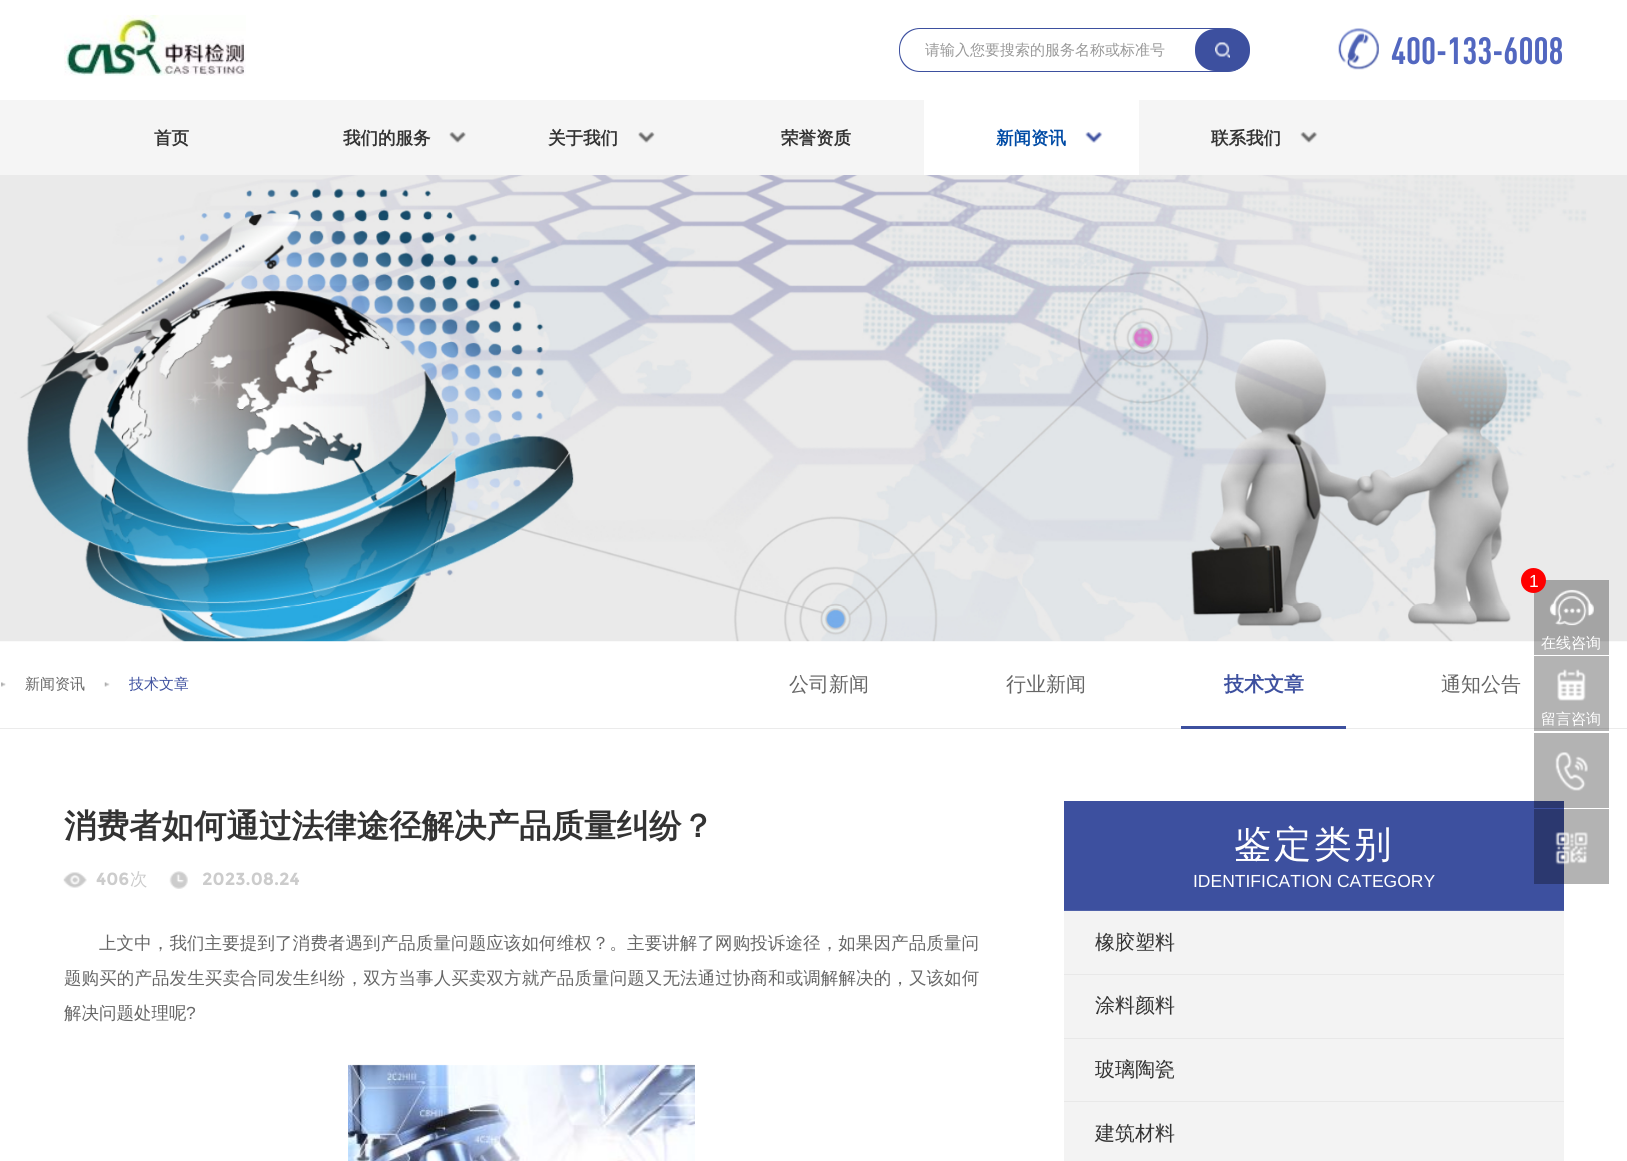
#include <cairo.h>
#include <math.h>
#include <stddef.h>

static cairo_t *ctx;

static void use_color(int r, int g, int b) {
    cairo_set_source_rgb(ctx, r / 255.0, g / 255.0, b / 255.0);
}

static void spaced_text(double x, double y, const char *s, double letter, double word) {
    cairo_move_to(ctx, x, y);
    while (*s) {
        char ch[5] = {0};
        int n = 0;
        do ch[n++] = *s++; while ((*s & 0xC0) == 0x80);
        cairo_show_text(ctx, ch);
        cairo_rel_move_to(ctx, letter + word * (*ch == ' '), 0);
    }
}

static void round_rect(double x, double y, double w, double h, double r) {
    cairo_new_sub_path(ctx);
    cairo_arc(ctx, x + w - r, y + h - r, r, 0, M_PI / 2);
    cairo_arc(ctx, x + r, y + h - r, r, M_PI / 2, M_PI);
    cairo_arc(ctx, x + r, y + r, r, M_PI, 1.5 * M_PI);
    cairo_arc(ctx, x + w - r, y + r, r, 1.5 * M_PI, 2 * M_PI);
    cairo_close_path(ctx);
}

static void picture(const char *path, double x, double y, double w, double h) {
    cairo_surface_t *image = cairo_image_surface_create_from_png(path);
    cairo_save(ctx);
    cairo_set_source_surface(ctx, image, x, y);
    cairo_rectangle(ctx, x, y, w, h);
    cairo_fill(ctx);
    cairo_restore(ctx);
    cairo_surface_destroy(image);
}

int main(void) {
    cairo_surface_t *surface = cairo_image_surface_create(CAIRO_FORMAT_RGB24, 1627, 1161);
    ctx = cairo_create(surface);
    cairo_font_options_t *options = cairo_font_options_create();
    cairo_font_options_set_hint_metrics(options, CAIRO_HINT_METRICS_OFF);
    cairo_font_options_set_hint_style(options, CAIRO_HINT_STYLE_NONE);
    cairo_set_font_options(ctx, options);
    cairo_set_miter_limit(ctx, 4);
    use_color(255, 255, 255);
    cairo_paint(ctx);
    use_color(179, 179, 179);
    cairo_rectangle(ctx, 1564, 809, 45, 75);
    cairo_fill(ctx);
    cairo_rectangle(ctx, 1534, 733, 75, 75);
    cairo_fill(ctx);
    cairo_rectangle(ctx, 1534, 656, 75, 75);
    cairo_fill(ctx);
    picture("img1.png", 64, 15, 182, 61);
    use_color(61, 80, 159);
    cairo_set_fill_rule(ctx, CAIRO_FILL_RULE_EVEN_ODD);
    cairo_new_path(ctx);
    cairo_move_to(ctx, 920, 28);
    cairo_line_to(ctx, 1228, 28);
    cairo_curve_to(ctx, 1239, 28, 1249, 37, 1249, 49);
    cairo_line_to(ctx, 1249, 51);
    cairo_curve_to(ctx, 1249, 63, 1239, 72, 1228, 72);
    cairo_line_to(ctx, 920, 72);
    cairo_curve_to(ctx, 908, 72, 899, 63, 899, 51);
    cairo_line_to(ctx, 899, 49);
    cairo_curve_to(ctx, 899, 37, 908, 28, 920, 28);
    cairo_close_path(ctx);
    cairo_move_to(ctx, 920, 29);
    cairo_line_to(ctx, 1228, 29);
    cairo_curve_to(ctx, 1239, 29, 1249, 38, 1249, 49);
    cairo_line_to(ctx, 1249, 51);
    cairo_curve_to(ctx, 1249, 62, 1239, 71, 1228, 71);
    cairo_line_to(ctx, 920, 71);
    cairo_curve_to(ctx, 909, 71, 900, 62, 900, 51);
    cairo_line_to(ctx, 900, 49);
    cairo_curve_to(ctx, 900, 38, 909, 29, 920, 29);
    cairo_close_path(ctx);
    cairo_fill(ctx);
    cairo_select_font_face(ctx, "WenQuanYi Zen Hei Medium", CAIRO_FONT_SLANT_NORMAL, CAIRO_FONT_WEIGHT_NORMAL);
    cairo_set_font_size(ctx, 15);
    use_color(153, 153, 153);
    cairo_move_to(ctx, 925, 55);
    cairo_show_text(ctx, "请输入您要搜索的服务名称或标准号");
    use_color(61, 80, 159);
    round_rect(1195, 29, 55, 42, 20);
    cairo_fill(ctx);
    picture("img2.png", 1215, 42, 15, 16);
    picture("img3.png", 1338, 28, 41, 42);
    cairo_select_font_face(ctx, "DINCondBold", CAIRO_FONT_SLANT_NORMAL, CAIRO_FONT_WEIGHT_BOLD);
    cairo_set_font_size(ctx, 37.5);
    use_color(82, 103, 192);
    cairo_move_to(ctx, 1391, 64);
    cairo_show_text(ctx, "400-133-6008");
    use_color(245, 245, 245);
    cairo_rectangle(ctx, 0, 100, 1627, 75);
    cairo_fill(ctx);
    cairo_select_font_face(ctx, "WenQuanYi Zen Hei", CAIRO_FONT_SLANT_NORMAL, CAIRO_FONT_WEIGHT_BOLD);
    cairo_set_font_size(ctx, 17.5);
    use_color(51, 51, 51);
    cairo_move_to(ctx, 154, 144);
    cairo_show_text(ctx, "首页");
    cairo_move_to(ctx, 343, 144);
    cairo_show_text(ctx, "我们的服务");
    picture("img4.png", 449, 132, 17, 11);
    cairo_move_to(ctx, 548, 144);
    cairo_show_text(ctx, "关于我们");
    picture("img5.png", 638, 132, 17, 11);
    cairo_move_to(ctx, 781, 144);
    cairo_show_text(ctx, "荣誉资质");
    use_color(255, 255, 255);
    cairo_rectangle(ctx, 924, 100, 215, 75);
    cairo_fill(ctx);
    use_color(0, 75, 165);
    cairo_move_to(ctx, 996, 144);
    cairo_show_text(ctx, "新闻资讯");
    picture("img6.png", 1085, 132, 18, 11);
    use_color(51, 51, 51);
    cairo_move_to(ctx, 1211, 144);
    cairo_show_text(ctx, "联系我们");
    picture("img7.png", 1300, 132, 18, 11);
    picture("img12.png", 0, 175, 1627, 467);
    cairo_set_source_rgba(ctx, 0, 0, 0, 0.3);
    cairo_rectangle(ctx, 1534, 580, 75, 75);
    cairo_fill(ctx);
    use_color(255, 0, 0);
    cairo_arc(ctx, 1533.5, 580.5, 12.5, 0, 2 * M_PI);
    cairo_fill(ctx);
    cairo_select_font_face(ctx, "Liberation Sans", CAIRO_FONT_SLANT_NORMAL, CAIRO_FONT_WEIGHT_NORMAL);
    use_color(255, 255, 255);
    cairo_move_to(ctx, 1529, 587);
    cairo_show_text(ctx, "1");
    picture("img8.png", 1549, 589, 45, 37);
    cairo_select_font_face(ctx, "WenQuanYi Zen Hei Medium", CAIRO_FONT_SLANT_NORMAL, CAIRO_FONT_WEIGHT_NORMAL);
    cairo_set_font_size(ctx, 15);
    cairo_move_to(ctx, 1541, 648);
    cairo_show_text(ctx, "在线咨询");
    picture("img9.png", 1557, 669, 29, 32);
    cairo_move_to(ctx, 1541, 724);
    cairo_show_text(ctx, "留言咨询");
    picture("img10.png", 1555, 752, 33, 39);
    use_color(61, 80, 159);
    cairo_rectangle(ctx, 1064, 801, 500, 109);
    cairo_fill(ctx);
    use_color(43, 56, 111);
    cairo_rectangle(ctx, 1534, 809, 30, 75);
    cairo_fill(ctx);
    picture("img11.png", 1555, 832, 33, 33);
    picture("img13.png", 1, 682, 5, 5);
    use_color(102, 102, 102);
    cairo_move_to(ctx, 25, 689);
    cairo_show_text(ctx, "新闻资讯");
    picture("img14.png", 104, 682, 6, 5);
    use_color(61, 80, 159);
    cairo_move_to(ctx, 129, 689);
    cairo_show_text(ctx, "技术文章");
    cairo_set_font_size(ctx, 20);
    use_color(102, 102, 102);
    cairo_move_to(ctx, 789, 691);
    cairo_show_text(ctx, "公司新闻");
    cairo_move_to(ctx, 1006, 691);
    cairo_show_text(ctx, "行业新闻");
    cairo_select_font_face(ctx, "WenQuanYi Zen Hei", CAIRO_FONT_SLANT_NORMAL, CAIRO_FONT_WEIGHT_BOLD);
    use_color(61, 80, 159);
    cairo_move_to(ctx, 1224, 691);
    cairo_show_text(ctx, "技术文章");
    use_color(235, 235, 235);
    cairo_rectangle(ctx, 0, 728, 1627, 1);
    cairo_fill(ctx);
    use_color(61, 80, 159);
    cairo_rectangle(ctx, 1181, 726, 165, 3);
    cairo_fill(ctx);
    cairo_select_font_face(ctx, "WenQuanYi Zen Hei Medium", CAIRO_FONT_SLANT_NORMAL, CAIRO_FONT_WEIGHT_NORMAL);
    use_color(102, 102, 102);
    cairo_move_to(ctx, 1441, 691);
    cairo_show_text(ctx, "通知公告");
    use_color(165, 165, 165);
    cairo_rectangle(ctx, 1534, 728, 75, 1);
    cairo_fill(ctx);
    cairo_select_font_face(ctx, "WenQuanYi Zen Hei", CAIRO_FONT_SLANT_NORMAL, CAIRO_FONT_WEIGHT_BOLD);
    cairo_set_font_size(ctx, 32.5);
    use_color(51, 51, 51);
    cairo_move_to(ctx, 64, 837);
    cairo_show_text(ctx, "消费者如何通过法律途径解决产品质量纠纷？");
    picture("img15.png", 63, 872, 24, 16);
    cairo_select_font_face(ctx, "Montserrat", CAIRO_FONT_SLANT_NORMAL, CAIRO_FONT_WEIGHT_BOLD);
    cairo_set_font_size(ctx, 17.5);
    use_color(204, 204, 204);
    cairo_move_to(ctx, 96, 885);
    cairo_show_text(ctx, "406");
    cairo_select_font_face(ctx, "WenQuanYi Zen Hei Medium", CAIRO_FONT_SLANT_NORMAL, CAIRO_FONT_WEIGHT_NORMAL);
    cairo_move_to(ctx, 130, 885);
    cairo_show_text(ctx, "次");
    picture("img16.png", 169, 871, 19, 18);
    cairo_select_font_face(ctx, "Montserrat", CAIRO_FONT_SLANT_NORMAL, CAIRO_FONT_WEIGHT_BOLD);
    cairo_move_to(ctx, 202, 885);
    cairo_show_text(ctx, "2023.08.24");
    cairo_select_font_face(ctx, "WenQuanYi Zen Hei Medium", CAIRO_FONT_SLANT_NORMAL, CAIRO_FONT_WEIGHT_NORMAL);
    use_color(102, 102, 102);
    spaced_text(99, 949, "上文中，我们主要提到了消费者遇到产品质量问题应该如何维权？。主要讲解了网购投诉途径，如果因产品质量问", 0.1, 0);
    spaced_text(64, 984, "题购买的产品发生买卖合同发生纠纷，双方当事人买卖双方就产品质量问题又无法通过协商和或调解解决的，又该如何", 0.1, 0);
    cairo_move_to(ctx, 64, 1019);
    cairo_show_text(ctx, "解决问题处理呢");
    cairo_select_font_face(ctx, "Liberation Sans", CAIRO_FONT_SLANT_NORMAL, CAIRO_FONT_WEIGHT_NORMAL);
    cairo_move_to(ctx, 186, 1019);
    cairo_show_text(ctx, "?");
    picture("img17.png", 348, 1064, 347, 97);
    use_color(243, 243, 243);
    cairo_rectangle(ctx, 1064, 911, 500, 250);
    cairo_fill(ctx);
    use_color(43, 56, 111);
    cairo_rectangle(ctx, 1534, 801, 30, 7);
    cairo_fill(ctx);
    use_color(80, 98, 169);
    cairo_rectangle(ctx, 1064, 910, 500, 1);
    cairo_fill(ctx);
    cairo_select_font_face(ctx, "WenQuanYi Zen Hei Medium", CAIRO_FONT_SLANT_NORMAL, CAIRO_FONT_WEIGHT_NORMAL);
    cairo_set_font_size(ctx, 37.5);
    use_color(255, 255, 255);
    spaced_text(1234, 857, "鉴定类别", 2.5, 0);
    cairo_select_font_face(ctx, "Liberation Sans", CAIRO_FONT_SLANT_NORMAL, CAIRO_FONT_WEIGHT_NORMAL);
    cairo_set_font_size(ctx, 17.5);
    cairo_move_to(ctx, 1193, 887);
    cairo_show_text(ctx, "IDENTIFICATION CATEGORY");
    use_color(232, 232, 232);
    cairo_rectangle(ctx, 1064, 974, 500, 1);
    cairo_fill(ctx);
    cairo_select_font_face(ctx, "WenQuanYi Zen Hei Medium", CAIRO_FONT_SLANT_NORMAL, CAIRO_FONT_WEIGHT_NORMAL);
    cairo_set_font_size(ctx, 20);
    use_color(51, 51, 51);
    cairo_move_to(ctx, 1095, 949);
    cairo_show_text(ctx, "橡胶塑料");
    use_color(232, 232, 232);
    cairo_rectangle(ctx, 1064, 1038, 500, 1);
    cairo_fill(ctx);
    use_color(51, 51, 51);
    cairo_move_to(ctx, 1095, 1012);
    cairo_show_text(ctx, "涂料颜料");
    use_color(232, 232, 232);
    cairo_rectangle(ctx, 1064, 1101, 500, 1);
    cairo_fill(ctx);
    use_color(51, 51, 51);
    cairo_move_to(ctx, 1095, 1076);
    cairo_show_text(ctx, "玻璃陶瓷");
    cairo_move_to(ctx, 1095, 1140);
    cairo_show_text(ctx, "建筑材料");
    cairo_surface_write_to_png(surface, "result.png");
    cairo_font_options_destroy(options);
    cairo_destroy(ctx);
    cairo_surface_destroy(surface);
    return 0;
}
